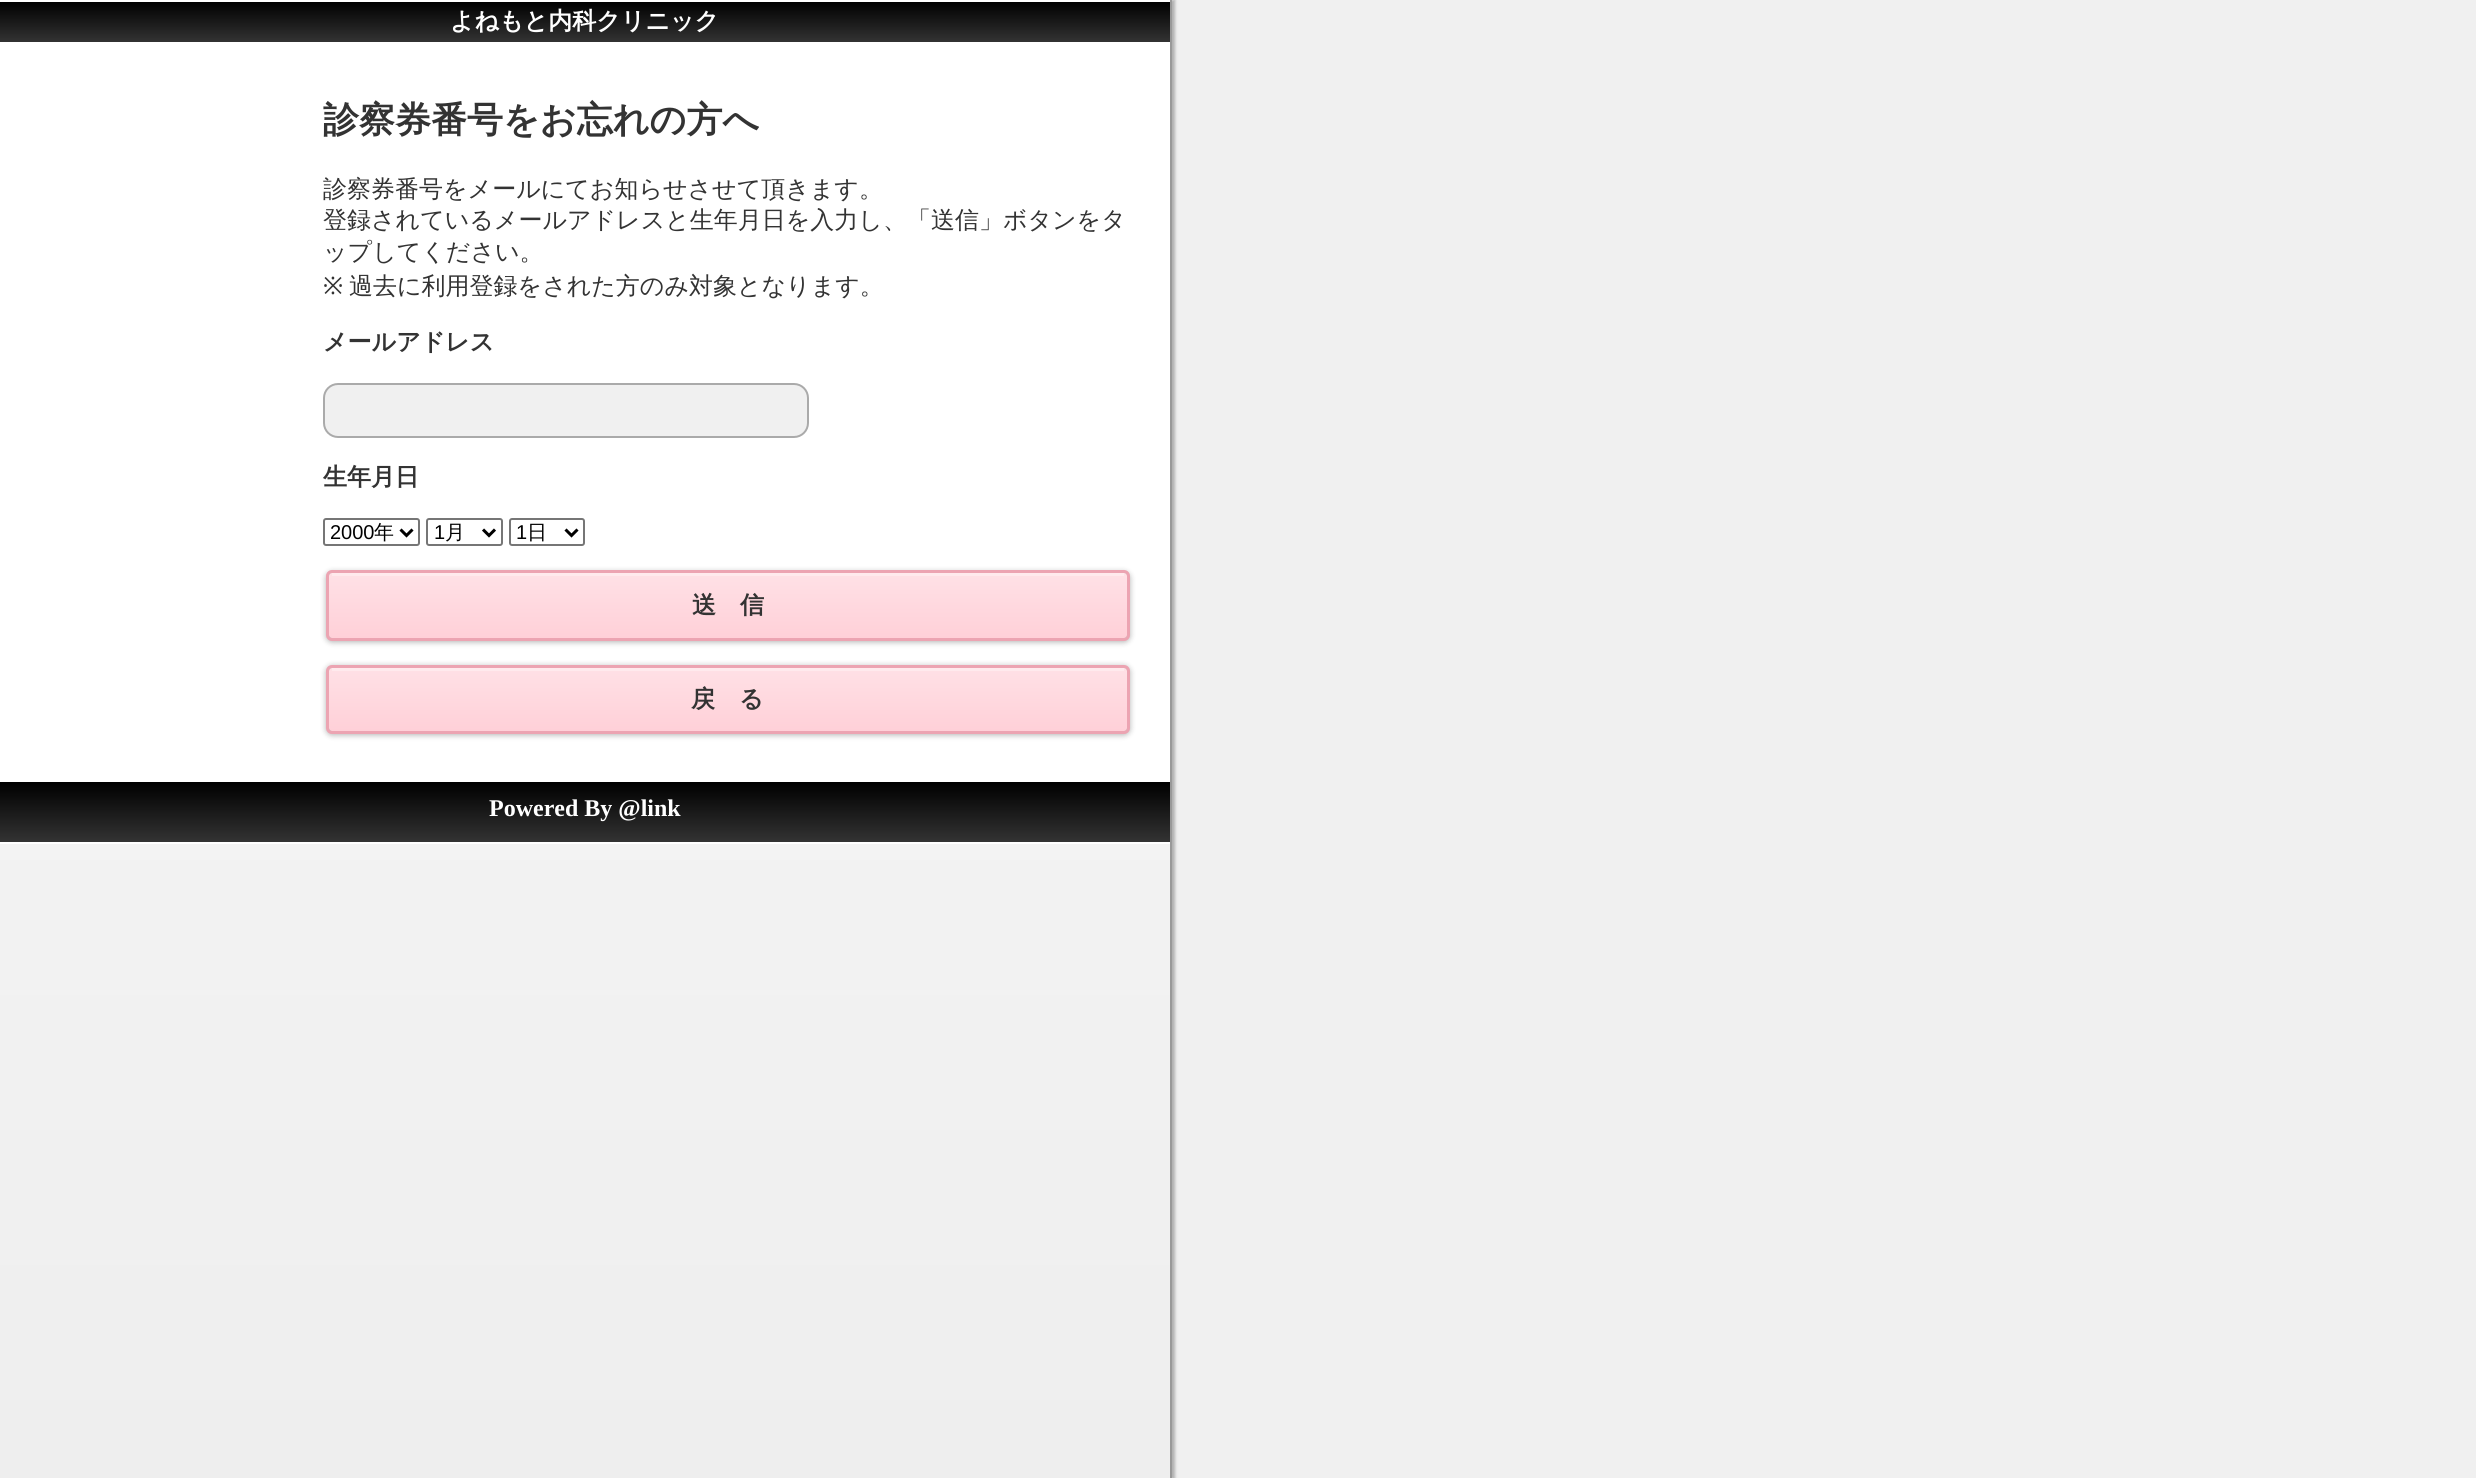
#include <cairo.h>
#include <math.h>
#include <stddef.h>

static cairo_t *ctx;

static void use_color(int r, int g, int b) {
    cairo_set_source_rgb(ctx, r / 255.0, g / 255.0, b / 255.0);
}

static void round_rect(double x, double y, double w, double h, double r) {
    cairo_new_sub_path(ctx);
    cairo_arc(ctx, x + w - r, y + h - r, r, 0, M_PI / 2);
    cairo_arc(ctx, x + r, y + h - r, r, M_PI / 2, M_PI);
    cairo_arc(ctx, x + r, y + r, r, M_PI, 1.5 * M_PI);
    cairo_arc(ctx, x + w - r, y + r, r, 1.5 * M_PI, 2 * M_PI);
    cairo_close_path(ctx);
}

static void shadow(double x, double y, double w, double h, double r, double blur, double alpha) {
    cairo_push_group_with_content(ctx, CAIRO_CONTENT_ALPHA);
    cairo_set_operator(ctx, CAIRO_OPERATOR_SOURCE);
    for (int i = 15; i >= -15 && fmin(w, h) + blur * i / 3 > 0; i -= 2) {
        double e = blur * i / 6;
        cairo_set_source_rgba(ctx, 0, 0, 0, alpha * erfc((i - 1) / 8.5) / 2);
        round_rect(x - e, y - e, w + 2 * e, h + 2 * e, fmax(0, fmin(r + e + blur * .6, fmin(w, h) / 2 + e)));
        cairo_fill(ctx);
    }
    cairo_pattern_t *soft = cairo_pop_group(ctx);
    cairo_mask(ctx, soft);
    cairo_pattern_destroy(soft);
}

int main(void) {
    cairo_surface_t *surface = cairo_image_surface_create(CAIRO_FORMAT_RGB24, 2476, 1478);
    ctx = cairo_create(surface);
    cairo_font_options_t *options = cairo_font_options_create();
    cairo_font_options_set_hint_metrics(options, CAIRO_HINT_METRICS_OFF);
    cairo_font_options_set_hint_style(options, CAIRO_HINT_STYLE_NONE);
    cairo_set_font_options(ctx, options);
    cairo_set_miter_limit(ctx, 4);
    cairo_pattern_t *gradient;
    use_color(240, 240, 240);
    cairo_paint(ctx);
    use_color(176, 176, 176);
    shadow(3, 0, 1172, 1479, 0, 1.5, 1);
    gradient = cairo_pattern_create_linear(585, 0, 585, 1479);
    cairo_pattern_add_color_stop_rgba(gradient, 0, 0.976, 0.976, 0.976, 1);
    cairo_pattern_add_color_stop_rgba(gradient, 1, 0.933, 0.933, 0.933, 1);
    cairo_set_source(ctx, gradient);
    cairo_pattern_destroy(gradient);
    cairo_rectangle(ctx, 0, 844, 1170, 634);
    cairo_fill(ctx);
    use_color(153, 153, 153);
    cairo_rectangle(ctx, 1170, 0, 2, 1478);
    cairo_fill(ctx);
    gradient = cairo_pattern_create_linear(585, 1.5, 585, 42);
    cairo_pattern_add_color_stop_rgba(gradient, 0, 0, 0, 0, 1);
    cairo_pattern_add_color_stop_rgba(gradient, 1, 0.2, 0.2, 0.2, 1);
    cairo_set_source(ctx, gradient);
    cairo_pattern_destroy(gradient);
    cairo_rectangle(ctx, 0, 2, 1170, 40);
    cairo_fill(ctx);
    use_color(255, 255, 255);
    cairo_rectangle(ctx, 0, 0, 1170, 2);
    cairo_fill(ctx);
    cairo_select_font_face(ctx, "WenQuanYi Zen Hei", CAIRO_FONT_SLANT_NORMAL, CAIRO_FONT_WEIGHT_BOLD);
    cairo_set_font_size(ctx, 24);
    cairo_move_to(ctx, 450, 29);
    cairo_show_text(ctx, "よねもと内科クリニック");
    cairo_rectangle(ctx, 0, 42, 1170, 740);
    cairo_fill(ctx);
    cairo_set_font_size(ctx, 36);
    use_color(51, 51, 51);
    cairo_move_to(ctx, 323, 132);
    cairo_show_text(ctx, "診察券番号をお忘れの方へ");
    cairo_select_font_face(ctx, "WenQuanYi Zen Hei Medium", CAIRO_FONT_SLANT_NORMAL, CAIRO_FONT_WEIGHT_NORMAL);
    cairo_set_font_size(ctx, 24);
    cairo_move_to(ctx, 323, 197);
    cairo_show_text(ctx, "診察券番号をメールにてお知らせさせて頂きます。");
    cairo_move_to(ctx, 323, 228);
    cairo_show_text(ctx, "登録されているメールアドレスと生年月日を入力し、「送信」ボタンをタ");
    cairo_move_to(ctx, 323, 260);
    cairo_show_text(ctx, "ップしてください。");
    cairo_select_font_face(ctx, "Noto Sans", CAIRO_FONT_SLANT_NORMAL, CAIRO_FONT_WEIGHT_NORMAL);
    cairo_move_to(ctx, 323, 294);
    cairo_show_text(ctx, "※");
    cairo_select_font_face(ctx, "WenQuanYi Zen Hei Medium", CAIRO_FONT_SLANT_NORMAL, CAIRO_FONT_WEIGHT_NORMAL);
    cairo_move_to(ctx, 349, 294);
    cairo_show_text(ctx, "過去に利用登録をされた方のみ対象となります。");
    cairo_select_font_face(ctx, "WenQuanYi Zen Hei", CAIRO_FONT_SLANT_NORMAL, CAIRO_FONT_WEIGHT_BOLD);
    cairo_move_to(ctx, 323, 350);
    cairo_show_text(ctx, "メールアドレス");
    use_color(240, 240, 240);
    round_rect(324, 384, 484, 53, 14);
    cairo_fill_preserve(ctx);
    use_color(170, 170, 170);
    cairo_stroke(ctx);
    use_color(51, 51, 51);
    cairo_move_to(ctx, 323, 485);
    cairo_show_text(ctx, "生年月日");
    round_rect(324, 519, 95, 26, 2);
    use_color(118, 118, 118);
    cairo_stroke(ctx);
    cairo_new_path(ctx);
    cairo_move_to(ctx, 400.5, 529.5);
    cairo_line_to(ctx, 406.5, 535.5);
    cairo_line_to(ctx, 412.5, 529.5);
    use_color(0, 0, 0);
    cairo_set_line_width(ctx, 3);
    cairo_stroke(ctx);
    cairo_select_font_face(ctx, "Liberation Sans", CAIRO_FONT_SLANT_NORMAL, CAIRO_FONT_WEIGHT_NORMAL);
    cairo_set_font_size(ctx, 20);
    cairo_move_to(ctx, 330, 539);
    cairo_show_text(ctx, "2000");
    cairo_select_font_face(ctx, "WenQuanYi Zen Hei Medium", CAIRO_FONT_SLANT_NORMAL, CAIRO_FONT_WEIGHT_NORMAL);
    cairo_move_to(ctx, 374, 539);
    cairo_show_text(ctx, "年");
    round_rect(427, 519, 75, 26, 2);
    use_color(118, 118, 118);
    cairo_set_line_width(ctx, 2);
    cairo_stroke(ctx);
    cairo_new_path(ctx);
    cairo_move_to(ctx, 483, 529.5);
    cairo_line_to(ctx, 489, 535.5);
    cairo_line_to(ctx, 495, 529.5);
    use_color(0, 0, 0);
    cairo_set_line_width(ctx, 3);
    cairo_stroke(ctx);
    cairo_select_font_face(ctx, "Liberation Sans", CAIRO_FONT_SLANT_NORMAL, CAIRO_FONT_WEIGHT_NORMAL);
    cairo_move_to(ctx, 434, 539);
    cairo_show_text(ctx, "1");
    cairo_select_font_face(ctx, "WenQuanYi Zen Hei Medium", CAIRO_FONT_SLANT_NORMAL, CAIRO_FONT_WEIGHT_NORMAL);
    cairo_move_to(ctx, 445, 539);
    cairo_show_text(ctx, "月");
    round_rect(510, 519, 74, 26, 2);
    use_color(118, 118, 118);
    cairo_set_line_width(ctx, 2);
    cairo_stroke(ctx);
    cairo_new_path(ctx);
    cairo_move_to(ctx, 565.5, 529.5);
    cairo_line_to(ctx, 571.5, 535.5);
    cairo_line_to(ctx, 577.5, 529.5);
    use_color(0, 0, 0);
    cairo_set_line_width(ctx, 3);
    cairo_stroke(ctx);
    cairo_select_font_face(ctx, "Liberation Sans", CAIRO_FONT_SLANT_NORMAL, CAIRO_FONT_WEIGHT_NORMAL);
    cairo_move_to(ctx, 516, 539);
    cairo_show_text(ctx, "1");
    cairo_select_font_face(ctx, "WenQuanYi Zen Hei Medium", CAIRO_FONT_SLANT_NORMAL, CAIRO_FONT_WEIGHT_NORMAL);
    cairo_move_to(ctx, 527, 539);
    cairo_show_text(ctx, "日");
    use_color(0, 0, 0);
    shadow(326, 572, 804, 70, 6, 3, 0.3);
    gradient = cairo_pattern_create_linear(728, 573, 728, 638);
    cairo_pattern_add_color_stop_rgba(gradient, 0, 1, 0.882, 0.902, 1);
    cairo_pattern_add_color_stop_rgba(gradient, 1, 1, 0.816, 0.847, 1);
    cairo_set_source(ctx, gradient);
    cairo_pattern_destroy(gradient);
    round_rect(329, 573, 798, 65, 3);
    cairo_fill(ctx);
    round_rect(327.5, 571.5, 801, 68, 4.5);
    use_color(236, 164, 178);
    cairo_stroke(ctx);
    use_color(255, 234, 237);
    cairo_rectangle(ctx, 332, 573, 792, 3);
    cairo_fill(ctx);
    cairo_select_font_face(ctx, "WenQuanYi Zen Hei", CAIRO_FONT_SLANT_NORMAL, CAIRO_FONT_WEIGHT_BOLD);
    cairo_set_font_size(ctx, 24);
    use_color(51, 51, 51);
    cairo_move_to(ctx, 692, 613);
    cairo_show_text(ctx, "送　信");
    use_color(0, 0, 0);
    shadow(326, 666, 804, 69, 6, 3, 0.3);
    gradient = cairo_pattern_create_linear(728, 667, 728, 731);
    cairo_pattern_add_color_stop_rgba(gradient, 0, 1, 0.882, 0.902, 1);
    cairo_pattern_add_color_stop_rgba(gradient, 1, 1, 0.816, 0.847, 1);
    cairo_set_source(ctx, gradient);
    cairo_pattern_destroy(gradient);
    round_rect(329, 668, 798, 63, 3);
    cairo_fill(ctx);
    round_rect(327.5, 666.5, 801, 66, 4.5);
    use_color(236, 164, 178);
    cairo_stroke(ctx);
    use_color(255, 234, 237);
    cairo_rectangle(ctx, 332, 668, 792, 3);
    cairo_fill(ctx);
    use_color(51, 51, 51);
    cairo_move_to(ctx, 691, 707);
    cairo_show_text(ctx, "戻　る");
    gradient = cairo_pattern_create_linear(585, 782, 585, 842);
    cairo_pattern_add_color_stop_rgba(gradient, 0, 0, 0, 0, 1);
    cairo_pattern_add_color_stop_rgba(gradient, 1, 0.2, 0.2, 0.2, 1);
    cairo_set_source(ctx, gradient);
    cairo_pattern_destroy(gradient);
    cairo_rectangle(ctx, 0, 782, 1170, 60);
    cairo_fill(ctx);
    use_color(255, 255, 255);
    cairo_rectangle(ctx, 0, 842, 1170, 2);
    cairo_fill(ctx);
    cairo_select_font_face(ctx, "Liberation Serif", CAIRO_FONT_SLANT_NORMAL, CAIRO_FONT_WEIGHT_BOLD);
    cairo_move_to(ctx, 489, 816);
    cairo_show_text(ctx, "Powered By @link");
    cairo_surface_write_to_png(surface, "result.png");
    cairo_font_options_destroy(options);
    cairo_destroy(ctx);
    cairo_surface_destroy(surface);
    return 0;
}
